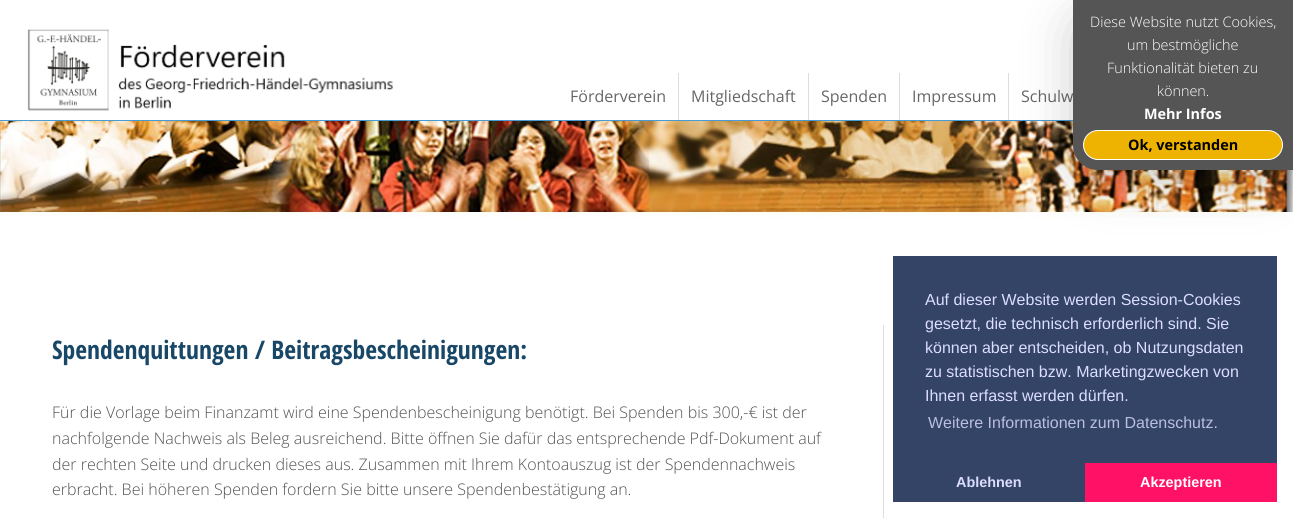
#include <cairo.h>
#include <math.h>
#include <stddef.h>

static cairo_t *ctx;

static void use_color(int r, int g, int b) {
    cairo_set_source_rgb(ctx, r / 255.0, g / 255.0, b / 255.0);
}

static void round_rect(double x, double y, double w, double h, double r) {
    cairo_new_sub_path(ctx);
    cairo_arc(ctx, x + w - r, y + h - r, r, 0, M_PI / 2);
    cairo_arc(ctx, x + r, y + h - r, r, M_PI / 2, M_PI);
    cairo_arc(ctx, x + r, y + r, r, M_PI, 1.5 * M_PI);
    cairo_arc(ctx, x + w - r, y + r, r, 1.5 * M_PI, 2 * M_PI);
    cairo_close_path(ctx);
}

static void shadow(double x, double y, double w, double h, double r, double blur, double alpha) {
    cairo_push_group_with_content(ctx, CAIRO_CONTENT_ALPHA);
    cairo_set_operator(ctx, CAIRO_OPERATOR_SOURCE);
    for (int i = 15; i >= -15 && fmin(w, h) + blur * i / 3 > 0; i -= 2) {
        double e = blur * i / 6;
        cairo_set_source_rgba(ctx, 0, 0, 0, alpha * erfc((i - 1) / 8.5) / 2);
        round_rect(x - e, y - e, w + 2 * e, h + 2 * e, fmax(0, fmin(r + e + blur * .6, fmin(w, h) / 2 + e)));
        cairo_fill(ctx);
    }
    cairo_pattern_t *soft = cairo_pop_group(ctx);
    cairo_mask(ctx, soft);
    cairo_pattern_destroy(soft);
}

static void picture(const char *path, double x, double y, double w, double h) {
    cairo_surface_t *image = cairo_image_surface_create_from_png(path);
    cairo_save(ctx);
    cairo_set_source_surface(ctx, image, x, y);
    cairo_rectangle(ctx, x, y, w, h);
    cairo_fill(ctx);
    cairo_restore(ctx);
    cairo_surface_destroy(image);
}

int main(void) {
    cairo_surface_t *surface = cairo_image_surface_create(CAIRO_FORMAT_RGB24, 1293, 518);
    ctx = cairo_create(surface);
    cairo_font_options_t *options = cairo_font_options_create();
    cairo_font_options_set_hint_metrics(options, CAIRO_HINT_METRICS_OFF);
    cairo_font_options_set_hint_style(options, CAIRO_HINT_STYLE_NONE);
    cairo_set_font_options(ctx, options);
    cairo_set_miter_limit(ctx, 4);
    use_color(255, 255, 255);
    cairo_paint(ctx);
    use_color(71, 156, 212);
    cairo_rectangle(ctx, 0, 120, 1073, 1);
    cairo_fill(ctx);
    picture("img1.png", 27, 29, 367, 82);
    use_color(221, 221, 221);
    cairo_rectangle(ctx, 678, 73, 1, 47);
    cairo_fill(ctx);
    cairo_select_font_face(ctx, "Open Sans", CAIRO_FONT_SLANT_NORMAL, CAIRO_FONT_WEIGHT_NORMAL);
    cairo_set_font_size(ctx, 16);
    use_color(102, 102, 102);
    cairo_move_to(ctx, 570, 102);
    cairo_show_text(ctx, "Förderverein");
    use_color(221, 221, 221);
    cairo_rectangle(ctx, 808, 73, 1, 47);
    cairo_fill(ctx);
    use_color(102, 102, 102);
    cairo_move_to(ctx, 691, 102);
    cairo_show_text(ctx, "Mitgliedschaft");
    use_color(221, 221, 221);
    cairo_rectangle(ctx, 899, 73, 1, 47);
    cairo_fill(ctx);
    use_color(102, 102, 102);
    cairo_move_to(ctx, 821, 102);
    cairo_show_text(ctx, "Spenden");
    use_color(221, 221, 221);
    cairo_rectangle(ctx, 1008, 73, 1, 47);
    cairo_fill(ctx);
    use_color(102, 102, 102);
    cairo_move_to(ctx, 912, 102);
    cairo_show_text(ctx, "Impressum");
    cairo_move_to(ctx, 1021, 102);
    cairo_show_text(ctx, "Schulw");
    picture("img2.png", 0, 121, 1293, 97);
    use_color(0, 0, 0);
    shadow(1073, 10, 220, 170, 25, 25, 0.2);
    use_color(85, 85, 85);
    cairo_new_path(ctx);
    cairo_move_to(ctx, 1073, 0);
    cairo_line_to(ctx, 1293, 0);
    cairo_line_to(ctx, 1293, 170);
    cairo_line_to(ctx, 1098, 170);
    cairo_curve_to(ctx, 1084, 170, 1073, 159, 1073, 145);
    cairo_close_path(ctx);
    cairo_fill(ctx);
    cairo_select_font_face(ctx, "Open Sans Light", CAIRO_FONT_SLANT_NORMAL, CAIRO_FONT_WEIGHT_NORMAL);
    cairo_set_font_size(ctx, 14.4);
    use_color(255, 255, 255);
    cairo_move_to(ctx, 1090, 27);
    cairo_show_text(ctx, "Diese Website nutzt Cookies,");
    cairo_move_to(ctx, 1127, 50);
    cairo_show_text(ctx, "um bestmögliche");
    cairo_move_to(ctx, 1107, 73);
    cairo_show_text(ctx, "Funktionalität bieten zu");
    cairo_move_to(ctx, 1157, 96);
    cairo_show_text(ctx, "können.");
    cairo_select_font_face(ctx, "Open Sans", CAIRO_FONT_SLANT_NORMAL, CAIRO_FONT_WEIGHT_BOLD);
    cairo_move_to(ctx, 1144, 119);
    cairo_show_text(ctx, "Mehr Infos");
    use_color(238, 179, 0);
    round_rect(1083.5, 130.5, 199, 29, 14.5);
    cairo_fill_preserve(ctx);
    use_color(255, 255, 255);
    cairo_set_line_width(ctx, 1);
    cairo_stroke(ctx);
    use_color(0, 0, 0);
    cairo_move_to(ctx, 1128, 150);
    cairo_show_text(ctx, "Ok, verstanden");
    cairo_select_font_face(ctx, "Open Sans Condensed", CAIRO_FONT_SLANT_NORMAL, CAIRO_FONT_WEIGHT_BOLD);
    cairo_set_font_size(ctx, 25.6);
    use_color(24, 71, 103);
    cairo_move_to(ctx, 52, 359);
    cairo_show_text(ctx, "Spendenquittungen / Beitragsbescheinigungen:");
    cairo_select_font_face(ctx, "Open Sans Light", CAIRO_FONT_SLANT_NORMAL, CAIRO_FONT_WEIGHT_NORMAL);
    cairo_set_font_size(ctx, 16);
    use_color(82, 82, 82);
    cairo_move_to(ctx, 52, 418);
    cairo_show_text(ctx, "Für die Vorlage beim Finanzamt wird eine Spendenbescheinigung benötigt. Bei Spenden bis 300,-€ ist der");
    cairo_move_to(ctx, 52, 444);
    cairo_show_text(ctx, "nachfolgende Nachweis als Beleg ausreichend. Bitte öffnen Sie dafür das entsprechende Pdf-Dokument auf");
    cairo_move_to(ctx, 52, 470);
    cairo_show_text(ctx, "der rechten Seite und drucken dieses aus. Zusammen mit Ihrem Kontoauszug ist der Spendennachweis");
    cairo_move_to(ctx, 52, 495);
    cairo_show_text(ctx, "erbracht. Bei höheren Spenden fordern Sie bitte unsere Spendenbestätigung an.");
    use_color(221, 221, 221);
    cairo_rectangle(ctx, 883, 325, 1, 193);
    cairo_fill(ctx);
    use_color(51, 68, 102);
    cairo_rectangle(ctx, 893, 256, 384, 246);
    cairo_fill(ctx);
    cairo_select_font_face(ctx, "Liberation Sans", CAIRO_FONT_SLANT_NORMAL, CAIRO_FONT_WEIGHT_NORMAL);
    use_color(221, 221, 255);
    cairo_move_to(ctx, 925, 305);
    cairo_show_text(ctx, "Auf dieser Website werden Session-Cookies");
    cairo_move_to(ctx, 925, 329);
    cairo_show_text(ctx, "gesetzt, die technisch erforderlich sind. Sie");
    cairo_move_to(ctx, 925, 353);
    cairo_show_text(ctx, "können aber entscheiden, ob Nutzungsdaten");
    cairo_move_to(ctx, 925, 377);
    cairo_show_text(ctx, "zu statistischen bzw. Marketingzwecken von");
    cairo_move_to(ctx, 925, 401);
    cairo_show_text(ctx, "Ihnen erfasst werden dürfen.");
    use_color(187, 190, 224);
    cairo_move_to(ctx, 928, 428);
    cairo_show_text(ctx, "Weitere Informationen zum Datenschutz.");
    cairo_select_font_face(ctx, "Liberation Sans", CAIRO_FONT_SLANT_NORMAL, CAIRO_FONT_WEIGHT_BOLD);
    cairo_set_font_size(ctx, 14.4);
    use_color(221, 221, 255);
    cairo_move_to(ctx, 956, 487);
    cairo_show_text(ctx, "Ablehnen");
    use_color(255, 17, 102);
    cairo_rectangle(ctx, 1085, 463, 192, 39);
    cairo_fill(ctx);
    use_color(255, 255, 255);
    cairo_move_to(ctx, 1140, 487);
    cairo_show_text(ctx, "Akzeptieren");
    cairo_surface_write_to_png(surface, "result.png");
    cairo_font_options_destroy(options);
    cairo_destroy(ctx);
    cairo_surface_destroy(surface);
    return 0;
}
